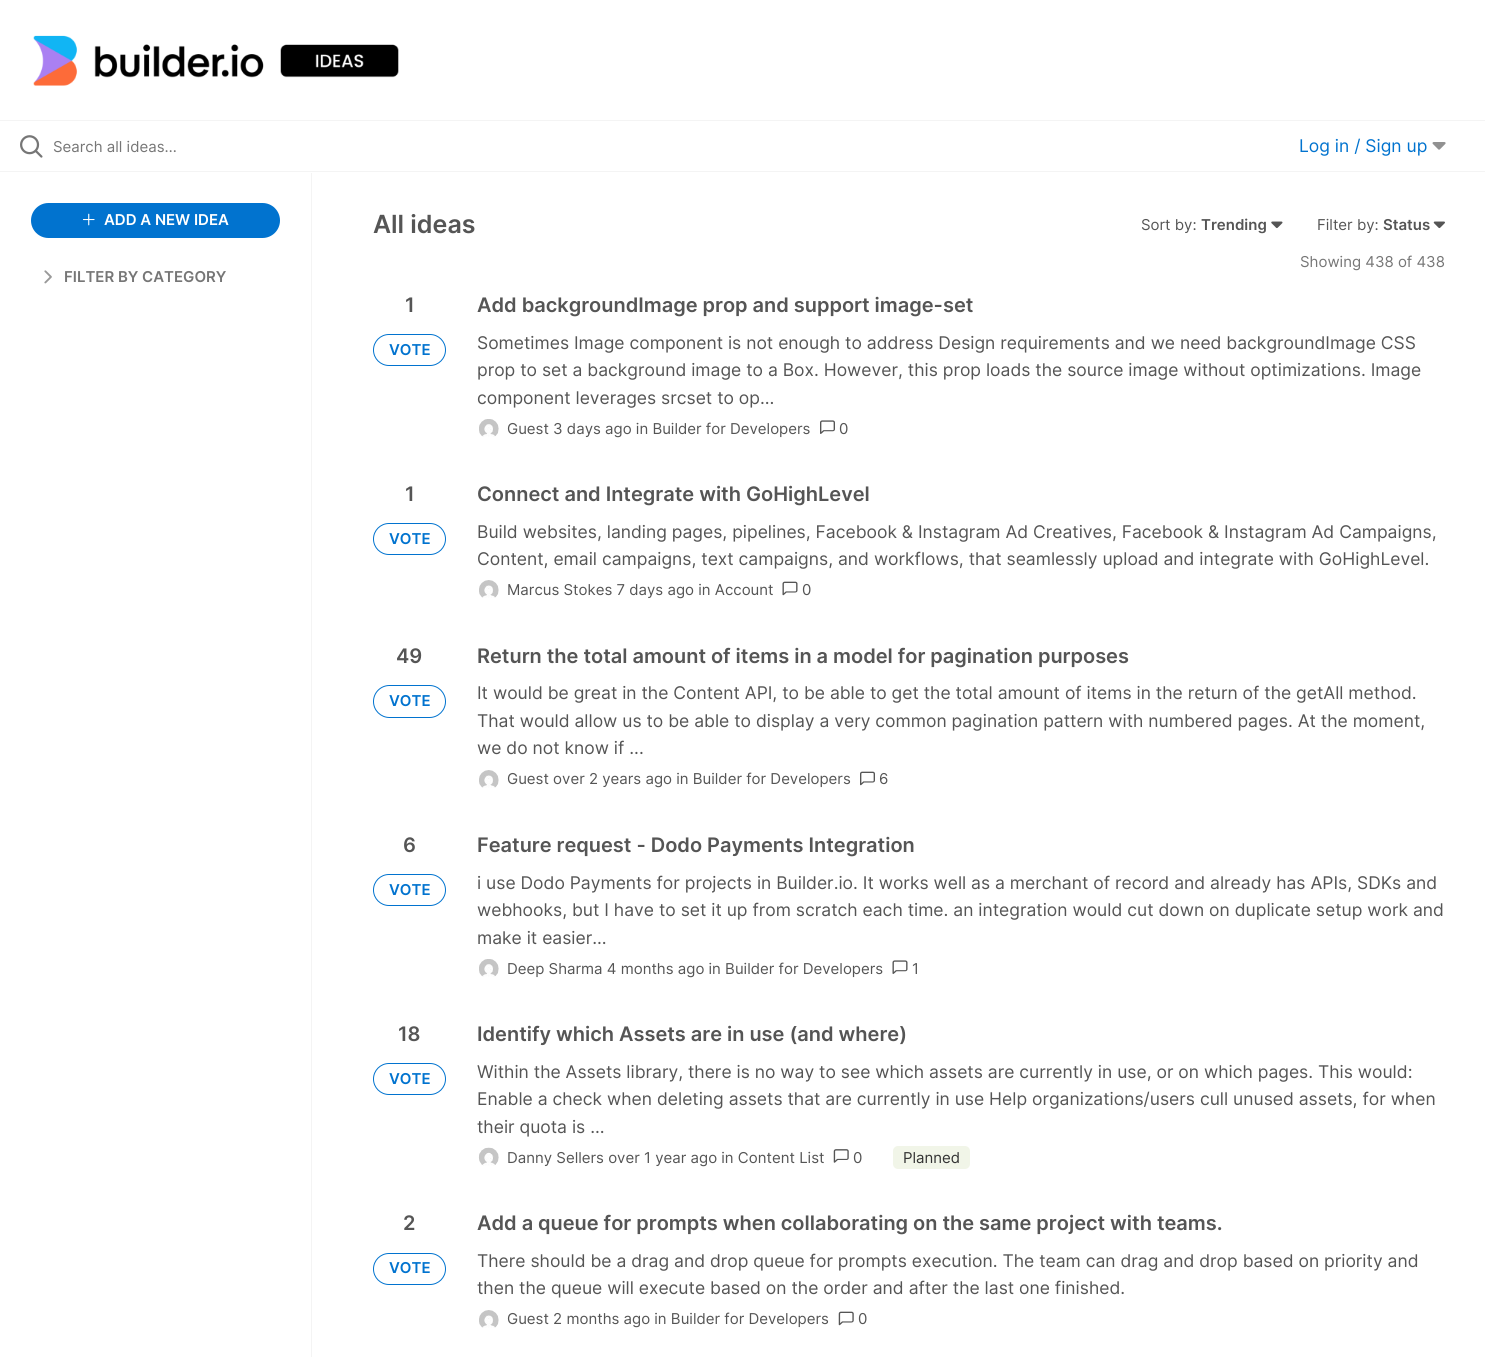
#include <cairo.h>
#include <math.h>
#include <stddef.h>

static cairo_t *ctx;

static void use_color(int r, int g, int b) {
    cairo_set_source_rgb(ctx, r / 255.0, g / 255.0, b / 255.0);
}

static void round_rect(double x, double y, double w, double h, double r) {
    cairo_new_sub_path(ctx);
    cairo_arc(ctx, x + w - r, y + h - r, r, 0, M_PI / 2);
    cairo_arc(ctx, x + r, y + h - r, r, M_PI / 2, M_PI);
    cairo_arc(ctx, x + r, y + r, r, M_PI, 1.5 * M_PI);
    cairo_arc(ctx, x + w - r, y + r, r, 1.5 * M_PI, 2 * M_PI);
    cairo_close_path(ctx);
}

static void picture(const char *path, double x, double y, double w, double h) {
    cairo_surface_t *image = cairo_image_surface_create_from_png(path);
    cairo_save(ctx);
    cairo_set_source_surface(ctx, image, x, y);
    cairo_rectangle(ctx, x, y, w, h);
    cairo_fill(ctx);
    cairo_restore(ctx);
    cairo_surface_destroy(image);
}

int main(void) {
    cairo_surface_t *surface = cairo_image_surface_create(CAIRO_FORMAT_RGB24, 1485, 1357);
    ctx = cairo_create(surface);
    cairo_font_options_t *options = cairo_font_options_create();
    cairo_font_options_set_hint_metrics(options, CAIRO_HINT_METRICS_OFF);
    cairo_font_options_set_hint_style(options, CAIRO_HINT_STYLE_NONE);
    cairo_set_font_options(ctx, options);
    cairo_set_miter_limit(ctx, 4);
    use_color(255, 255, 255);
    cairo_paint(ctx);
    use_color(244, 244, 244);
    cairo_rectangle(ctx, 0, 120, 1485, 1);
    cairo_fill(ctx);
    picture("img1.png", 33, 35, 366, 51);
    cairo_rectangle(ctx, 0, 171, 1485, 1);
    cairo_fill(ctx);
    picture("img2.png", 20, 135, 23, 23);
    cairo_select_font_face(ctx, "Inter", CAIRO_FONT_SLANT_NORMAL, CAIRO_FONT_WEIGHT_NORMAL);
    cairo_set_font_size(ctx, 15);
    use_color(118, 118, 118);
    cairo_move_to(ctx, 53, 152);
    cairo_show_text(ctx, "Search all ideas…");
    cairo_set_font_size(ctx, 17.5);
    use_color(1, 115, 207);
    cairo_move_to(ctx, 1299, 152);
    cairo_show_text(ctx, "Log in / Sign up");
    picture("img3.png", 1432, 142, 14, 8);
    use_color(244, 244, 244);
    cairo_rectangle(ctx, 311, 173, 1, 1184);
    cairo_fill(ctx);
    use_color(1, 115, 207);
    round_rect(31, 203, 249, 35, 17.5);
    cairo_fill(ctx);
    picture("img4.png", 82, 213, 13, 13);
    cairo_select_font_face(ctx, "Inter SemiBold", CAIRO_FONT_SLANT_NORMAL, CAIRO_FONT_WEIGHT_NORMAL);
    cairo_set_font_size(ctx, 15);
    use_color(255, 255, 255);
    cairo_move_to(ctx, 104, 225);
    cairo_show_text(ctx, "ADD A NEW IDEA");
    picture("img5.png", 44, 270, 8, 14);
    use_color(118, 118, 118);
    cairo_move_to(ctx, 64, 282);
    cairo_show_text(ctx, "FILTER BY CATEGORY");
    cairo_set_font_size(ctx, 25);
    use_color(85, 85, 85);
    cairo_move_to(ctx, 373, 233);
    cairo_show_text(ctx, "All ideas");
    cairo_select_font_face(ctx, "Inter", CAIRO_FONT_SLANT_NORMAL, CAIRO_FONT_WEIGHT_NORMAL);
    cairo_set_font_size(ctx, 15);
    cairo_move_to(ctx, 1141, 230);
    cairo_show_text(ctx, "Sort by:");
    cairo_select_font_face(ctx, "Inter SemiBold", CAIRO_FONT_SLANT_NORMAL, CAIRO_FONT_WEIGHT_NORMAL);
    cairo_move_to(ctx, 1201, 230);
    cairo_show_text(ctx, "Trending");
    picture("img6.png", 1271, 221, 12, 8);
    cairo_select_font_face(ctx, "Inter", CAIRO_FONT_SLANT_NORMAL, CAIRO_FONT_WEIGHT_NORMAL);
    cairo_move_to(ctx, 1317, 230);
    cairo_show_text(ctx, "Filter by:");
    cairo_select_font_face(ctx, "Inter SemiBold", CAIRO_FONT_SLANT_NORMAL, CAIRO_FONT_WEIGHT_NORMAL);
    cairo_move_to(ctx, 1383, 230);
    cairo_show_text(ctx, "Status");
    picture("img7.png", 1433, 221, 12, 8);
    cairo_select_font_face(ctx, "Inter", CAIRO_FONT_SLANT_NORMAL, CAIRO_FONT_WEIGHT_NORMAL);
    use_color(118, 118, 118);
    cairo_move_to(ctx, 1300, 267);
    cairo_show_text(ctx, "Showing 438 of 438");
    cairo_select_font_face(ctx, "Inter SemiBold", CAIRO_FONT_SLANT_NORMAL, CAIRO_FONT_WEIGHT_NORMAL);
    cairo_set_font_size(ctx, 20);
    use_color(85, 85, 85);
    cairo_move_to(ctx, 405, 312);
    cairo_show_text(ctx, "1");
    round_rect(373.5, 334.5, 72, 31, 15.5);
    use_color(1, 115, 207);
    cairo_set_line_width(ctx, 1);
    cairo_stroke(ctx);
    cairo_set_font_size(ctx, 15);
    cairo_move_to(ctx, 389, 355);
    cairo_show_text(ctx, "VOTE");
    cairo_set_font_size(ctx, 20);
    use_color(85, 85, 85);
    cairo_move_to(ctx, 477, 312);
    cairo_show_text(ctx, "Add backgroundImage prop and support image-set");
    cairo_select_font_face(ctx, "Inter", CAIRO_FONT_SLANT_NORMAL, CAIRO_FONT_WEIGHT_NORMAL);
    cairo_set_font_size(ctx, 17.5);
    cairo_move_to(ctx, 477, 349);
    cairo_show_text(ctx, "Sometimes Image component is not enough to address Design requirements and we need backgroundImage CSS");
    cairo_move_to(ctx, 477, 376);
    cairo_show_text(ctx, "prop to set a background image to a Box. However, this prop loads the source image without optimizations. Image");
    cairo_move_to(ctx, 477, 404);
    cairo_show_text(ctx, "component leverages srcset to op...");
    picture("img8.png", 479, 419, 20, 18);
    cairo_set_font_size(ctx, 15);
    cairo_move_to(ctx, 507, 434);
    cairo_show_text(ctx, "Guest 3 days ago in Builder for Developers");
    picture("img9.png", 820, 420, 15, 14);
    cairo_move_to(ctx, 839, 434);
    cairo_show_text(ctx, "0");
    cairo_select_font_face(ctx, "Inter SemiBold", CAIRO_FONT_SLANT_NORMAL, CAIRO_FONT_WEIGHT_NORMAL);
    cairo_set_font_size(ctx, 20);
    cairo_move_to(ctx, 405, 501);
    cairo_show_text(ctx, "1");
    round_rect(373.5, 523.5, 72, 31, 15.5);
    use_color(1, 115, 207);
    cairo_stroke(ctx);
    cairo_set_font_size(ctx, 15);
    cairo_move_to(ctx, 389, 544);
    cairo_show_text(ctx, "VOTE");
    cairo_set_font_size(ctx, 20);
    use_color(85, 85, 85);
    cairo_move_to(ctx, 477, 501);
    cairo_show_text(ctx, "Connect and Integrate with GoHighLevel");
    cairo_select_font_face(ctx, "Inter", CAIRO_FONT_SLANT_NORMAL, CAIRO_FONT_WEIGHT_NORMAL);
    cairo_set_font_size(ctx, 17.5);
    cairo_move_to(ctx, 477, 538);
    cairo_show_text(ctx, "Build websites, landing pages, pipelines, Facebook & Instagram Ad Creatives, Facebook & Instagram Ad Campaigns,");
    cairo_move_to(ctx, 477, 565);
    cairo_show_text(ctx, "Content, email campaigns, text campaigns, and workflows, that seamlessly upload and integrate with GoHighLevel.");
    picture("img10.png", 479, 580, 20, 18);
    cairo_set_font_size(ctx, 15);
    cairo_move_to(ctx, 507, 595);
    cairo_show_text(ctx, "Marcus Stokes 7 days ago in Account");
    picture("img11.png", 782, 581, 16, 15);
    cairo_move_to(ctx, 802, 595);
    cairo_show_text(ctx, "0");
    cairo_select_font_face(ctx, "Inter SemiBold", CAIRO_FONT_SLANT_NORMAL, CAIRO_FONT_WEIGHT_NORMAL);
    cairo_set_font_size(ctx, 20);
    cairo_move_to(ctx, 396, 663);
    cairo_show_text(ctx, "49");
    round_rect(373.5, 685.5, 72, 32, 16);
    use_color(1, 115, 207);
    cairo_stroke(ctx);
    cairo_set_font_size(ctx, 15);
    cairo_move_to(ctx, 389, 706);
    cairo_show_text(ctx, "VOTE");
    cairo_set_font_size(ctx, 20);
    use_color(85, 85, 85);
    cairo_move_to(ctx, 477, 663);
    cairo_show_text(ctx, "Return the total amount of items in a model for pagination purposes");
    cairo_select_font_face(ctx, "Inter", CAIRO_FONT_SLANT_NORMAL, CAIRO_FONT_WEIGHT_NORMAL);
    cairo_set_font_size(ctx, 17.5);
    cairo_move_to(ctx, 477, 699);
    cairo_show_text(ctx, "It would be great in the Content API, to be able to get the total amount of items in the return of the getAll method.");
    cairo_move_to(ctx, 477, 727);
    cairo_show_text(ctx, "That would allow us to be able to display a very common pagination pattern with numbered pages. At the moment,");
    cairo_move_to(ctx, 477, 754);
    cairo_show_text(ctx, "we do not know if ...");
    picture("img12.png", 479, 770, 20, 18);
    cairo_set_font_size(ctx, 15);
    cairo_move_to(ctx, 507, 784);
    cairo_show_text(ctx, "Guest over 2 years ago in Builder for Developers");
    picture("img13.png", 860, 771, 15, 15);
    cairo_move_to(ctx, 879, 784);
    cairo_show_text(ctx, "6");
    cairo_select_font_face(ctx, "Inter SemiBold", CAIRO_FONT_SLANT_NORMAL, CAIRO_FONT_WEIGHT_NORMAL);
    cairo_set_font_size(ctx, 20);
    cairo_move_to(ctx, 403, 852);
    cairo_show_text(ctx, "6");
    round_rect(373.5, 874.5, 72, 31, 15.5);
    use_color(1, 115, 207);
    cairo_stroke(ctx);
    cairo_set_font_size(ctx, 15);
    cairo_move_to(ctx, 389, 895);
    cairo_show_text(ctx, "VOTE");
    cairo_set_font_size(ctx, 20);
    use_color(85, 85, 85);
    cairo_move_to(ctx, 477, 852);
    cairo_show_text(ctx, "Feature request - Dodo Payments Integration");
    cairo_select_font_face(ctx, "Inter", CAIRO_FONT_SLANT_NORMAL, CAIRO_FONT_WEIGHT_NORMAL);
    cairo_set_font_size(ctx, 17.5);
    cairo_move_to(ctx, 477, 889);
    cairo_show_text(ctx, "i use Dodo Payments for projects in Builder.io. It works well as a merchant of record and already has APIs, SDKs and");
    cairo_move_to(ctx, 477, 916);
    cairo_show_text(ctx, "webhooks, but I have to set it up from scratch each time. an integration would cut down on duplicate setup work and");
    cairo_move_to(ctx, 477, 944);
    cairo_show_text(ctx, "make it easier...");
    picture("img8.png", 479, 959, 20, 18);
    cairo_set_font_size(ctx, 15);
    cairo_move_to(ctx, 507, 974);
    cairo_show_text(ctx, "Deep Sharma 4 months ago in Builder for Developers");
    picture("img14.png", 892, 960, 16, 14);
    cairo_move_to(ctx, 912, 974);
    cairo_show_text(ctx, "1");
    cairo_select_font_face(ctx, "Inter SemiBold", CAIRO_FONT_SLANT_NORMAL, CAIRO_FONT_WEIGHT_NORMAL);
    cairo_set_font_size(ctx, 20);
    cairo_move_to(ctx, 398, 1041);
    cairo_show_text(ctx, "18");
    round_rect(373.5, 1063.5, 72, 31, 15.5);
    use_color(1, 115, 207);
    cairo_stroke(ctx);
    cairo_set_font_size(ctx, 15);
    cairo_move_to(ctx, 389, 1084);
    cairo_show_text(ctx, "VOTE");
    cairo_set_font_size(ctx, 20);
    use_color(85, 85, 85);
    cairo_move_to(ctx, 477, 1041);
    cairo_show_text(ctx, "Identify which Assets are in use (and where)");
    cairo_select_font_face(ctx, "Inter", CAIRO_FONT_SLANT_NORMAL, CAIRO_FONT_WEIGHT_NORMAL);
    cairo_set_font_size(ctx, 17.5);
    cairo_move_to(ctx, 477, 1078);
    cairo_show_text(ctx, "Within the Assets library, there is no way to see which assets are currently in use, or on which pages. This would:");
    cairo_move_to(ctx, 477, 1105);
    cairo_show_text(ctx, "Enable a check when deleting assets that are currently in use Help organizations/users cull unused assets, for when");
    cairo_move_to(ctx, 477, 1133);
    cairo_show_text(ctx, "their quota is ...");
    picture("img15.png", 478, 1147, 21, 19);
    cairo_set_font_size(ctx, 15);
    cairo_move_to(ctx, 507, 1163);
    cairo_show_text(ctx, "Danny Sellers over 1 year ago in Content List");
    picture("img16.png", 833, 1149, 16, 14);
    cairo_move_to(ctx, 853, 1163);
    cairo_show_text(ctx, "0");
    use_color(241, 245, 232);
    round_rect(893, 1146, 77, 23, 5);
    cairo_fill(ctx);
    use_color(51, 51, 51);
    cairo_move_to(ctx, 903, 1163);
    cairo_show_text(ctx, "Planned");
    cairo_select_font_face(ctx, "Inter SemiBold", CAIRO_FONT_SLANT_NORMAL, CAIRO_FONT_WEIGHT_NORMAL);
    cairo_set_font_size(ctx, 20);
    use_color(85, 85, 85);
    cairo_move_to(ctx, 403, 1230);
    cairo_show_text(ctx, "2");
    round_rect(373.5, 1253.5, 72, 31, 15.5);
    use_color(1, 115, 207);
    cairo_stroke(ctx);
    cairo_set_font_size(ctx, 15);
    cairo_move_to(ctx, 389, 1273);
    cairo_show_text(ctx, "VOTE");
    cairo_set_font_size(ctx, 20);
    use_color(85, 85, 85);
    cairo_move_to(ctx, 477, 1230);
    cairo_show_text(ctx, "Add a queue for prompts when collaborating on the same project with teams.");
    cairo_select_font_face(ctx, "Inter", CAIRO_FONT_SLANT_NORMAL, CAIRO_FONT_WEIGHT_NORMAL);
    cairo_set_font_size(ctx, 17.5);
    cairo_move_to(ctx, 477, 1267);
    cairo_show_text(ctx, "There should be a drag and drop queue for prompts execution. The team can drag and drop based on priority and");
    cairo_move_to(ctx, 477, 1294);
    cairo_show_text(ctx, "then the queue will execute based on the order and after the last one finished.");
    picture("img12.png", 479, 1310, 20, 18);
    cairo_set_font_size(ctx, 15);
    cairo_move_to(ctx, 507, 1324);
    cairo_show_text(ctx, "Guest 2 months ago in Builder for Developers");
    picture("img17.png", 838, 1311, 16, 15);
    cairo_move_to(ctx, 858, 1324);
    cairo_show_text(ctx, "0");
    cairo_surface_write_to_png(surface, "result.png");
    cairo_font_options_destroy(options);
    cairo_destroy(ctx);
    cairo_surface_destroy(surface);
    return 0;
}
